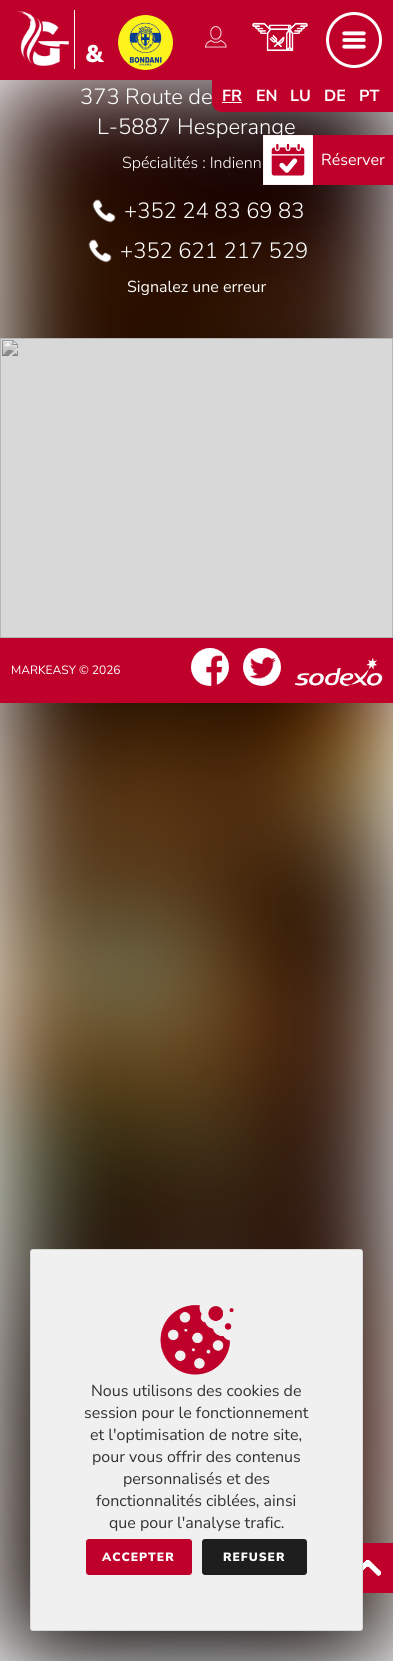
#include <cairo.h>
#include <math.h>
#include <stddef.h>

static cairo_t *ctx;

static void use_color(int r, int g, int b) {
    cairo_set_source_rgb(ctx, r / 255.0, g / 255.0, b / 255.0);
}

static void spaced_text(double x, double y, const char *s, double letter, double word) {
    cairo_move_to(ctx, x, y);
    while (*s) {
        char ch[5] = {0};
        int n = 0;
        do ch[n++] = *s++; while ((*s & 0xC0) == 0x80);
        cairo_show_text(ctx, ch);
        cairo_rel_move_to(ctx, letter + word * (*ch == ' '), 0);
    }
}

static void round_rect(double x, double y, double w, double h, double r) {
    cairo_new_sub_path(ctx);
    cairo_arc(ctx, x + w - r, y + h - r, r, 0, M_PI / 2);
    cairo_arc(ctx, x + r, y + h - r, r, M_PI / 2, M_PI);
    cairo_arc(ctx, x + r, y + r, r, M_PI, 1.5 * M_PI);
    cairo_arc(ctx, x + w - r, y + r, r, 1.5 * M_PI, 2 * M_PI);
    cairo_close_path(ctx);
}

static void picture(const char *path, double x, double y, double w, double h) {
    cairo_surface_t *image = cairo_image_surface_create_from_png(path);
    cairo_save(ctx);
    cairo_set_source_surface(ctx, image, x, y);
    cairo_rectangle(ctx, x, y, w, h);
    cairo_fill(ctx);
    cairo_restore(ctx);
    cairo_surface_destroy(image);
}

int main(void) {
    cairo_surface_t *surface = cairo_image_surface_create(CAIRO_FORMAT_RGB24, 393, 1661);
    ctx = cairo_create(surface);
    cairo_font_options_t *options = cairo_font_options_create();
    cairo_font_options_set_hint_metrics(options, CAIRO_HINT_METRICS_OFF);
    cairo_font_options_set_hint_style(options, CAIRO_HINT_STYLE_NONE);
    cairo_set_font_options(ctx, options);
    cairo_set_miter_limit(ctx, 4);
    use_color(255, 255, 255);
    cairo_paint(ctx);
    use_color(191, 0, 43);
    cairo_rectangle(ctx, 0, 0, 393, 80);
    cairo_fill(ctx);
    picture("img1.png", 16, 11, 53, 55);
    use_color(255, 255, 255);
    cairo_rectangle(ctx, 74, 10, 1, 59);
    cairo_fill(ctx);
    picture("img2.png", 205, 26, 22, 22);
    picture("img3.png", 252, 22, 56, 30);
    cairo_arc(ctx, 354, 40, 26.5, 0, 2 * M_PI);
    cairo_set_line_width(ctx, 3);
    cairo_stroke(ctx);
    picture("img4.png", 342, 31, 24, 18);
    cairo_select_font_face(ctx, "Nunito Sans Black", CAIRO_FONT_SLANT_NORMAL, CAIRO_FONT_WEIGHT_NORMAL);
    cairo_set_font_size(ctx, 24);
    cairo_move_to(ctx, 85, 62);
    cairo_show_text(ctx, "&");
    picture("img5.png", 118, 15, 55, 55);
    picture("img6.png", 0, 80, 393, 1581);
    use_color(191, 0, 43);
    cairo_new_path(ctx);
    cairo_move_to(ctx, 212, 80);
    cairo_line_to(ctx, 393, 80);
    cairo_line_to(ctx, 393, 112);
    cairo_line_to(ctx, 222, 112);
    cairo_curve_to(ctx, 216.5, 112, 212, 107.5, 212, 102);
    cairo_close_path(ctx);
    cairo_fill(ctx);
    cairo_select_font_face(ctx, "Nunito Sans", CAIRO_FONT_SLANT_NORMAL, CAIRO_FONT_WEIGHT_BOLD);
    cairo_set_font_size(ctx, 16);
    use_color(255, 255, 255);
    cairo_move_to(ctx, 222, 101);
    cairo_show_text(ctx, "FR");
    cairo_rectangle(ctx, 222, 102, 20, 1);
    cairo_fill(ctx);
    cairo_move_to(ctx, 256, 101);
    cairo_show_text(ctx, "EN");
    cairo_move_to(ctx, 290, 101);
    cairo_show_text(ctx, "LU");
    cairo_move_to(ctx, 324, 101);
    cairo_show_text(ctx, "DE");
    cairo_move_to(ctx, 359, 101);
    cairo_show_text(ctx, "PT");
    cairo_select_font_face(ctx, "Nunito Sans Light", CAIRO_FONT_SLANT_NORMAL, CAIRO_FONT_WEIGHT_NORMAL);
    cairo_set_font_size(ctx, 22);
    cairo_move_to(ctx, 80, 104);
    cairo_show_text(ctx, "373 Route de");
    cairo_move_to(ctx, 97, 134);
    cairo_show_text(ctx, "L-5887");
    cairo_move_to(ctx, 177, 134);
    cairo_show_text(ctx, "Hesperange");
    cairo_set_font_size(ctx, 16);
    cairo_move_to(ctx, 122, 168);
    cairo_show_text(ctx, "Spécialités : Indienn");
    picture("img7.png", 92, 199, 24, 24);
    cairo_set_font_size(ctx, 22);
    cairo_move_to(ctx, 124, 218);
    cairo_show_text(ctx, "+352 24 83 69 83");
    picture("img8.png", 88, 239, 24, 24);
    cairo_move_to(ctx, 120, 258);
    cairo_show_text(ctx, "+352 621 217 529");
    cairo_select_font_face(ctx, "Nunito Sans", CAIRO_FONT_SLANT_NORMAL, CAIRO_FONT_WEIGHT_NORMAL);
    cairo_set_font_size(ctx, 16);
    cairo_move_to(ctx, 127, 292);
    cairo_show_text(ctx, "Signalez une erreur");
    use_color(191, 0, 43);
    cairo_rectangle(ctx, 263, 135, 130, 50);
    cairo_fill(ctx);
    picture("img9.png", 263, 135, 50, 50);
    use_color(255, 255, 255);
    cairo_move_to(ctx, 321, 165);
    cairo_show_text(ctx, "Réserver");
    picture("img10.png", 0, 338, 393, 300);
    use_color(191, 0, 43);
    cairo_rectangle(ctx, 0, 638, 393, 65);
    cairo_fill(ctx);
    cairo_set_font_size(ctx, 12);
    use_color(255, 255, 255);
    cairo_move_to(ctx, 11, 674);
    cairo_show_text(ctx, "MARKEASY © 2026");
    picture("img11.png", 191, 648, 38, 38);
    picture("img12.png", 243, 648, 38, 38);
    picture("img13.png", 294, 658, 89, 28);
    use_color(240, 240, 240);
    round_rect(30, 1249, 333, 382, 3);
    cairo_fill(ctx);
    round_rect(30.5, 1249.5, 332, 381, 2.5);
    cairo_set_source_rgba(ctx, 0, 0, 0, 0.1);
    cairo_set_line_width(ctx, 1);
    cairo_stroke(ctx);
    picture("img14.png", 160, 1305, 74, 70);
    cairo_set_font_size(ctx, 16);
    use_color(50, 50, 50);
    cairo_move_to(ctx, 91, 1396);
    cairo_show_text(ctx, "Nous utilisons des cookies de");
    cairo_move_to(ctx, 84, 1418);
    cairo_show_text(ctx, "session pour le fonctionnement");
    cairo_move_to(ctx, 90, 1440);
    cairo_show_text(ctx, "et l'optimisation de notre site,");
    cairo_move_to(ctx, 92, 1462);
    cairo_show_text(ctx, "pour vous offrir des contenus");
    cairo_move_to(ctx, 123, 1484);
    cairo_show_text(ctx, "personnalisés et des");
    cairo_move_to(ctx, 96, 1506);
    cairo_show_text(ctx, "fonctionnalités ciblées, ainsi");
    cairo_move_to(ctx, 109, 1528);
    cairo_show_text(ctx, "que pour l'analyse trafic.");
    use_color(191, 0, 43);
    round_rect(86, 1539, 106, 36, 3);
    cairo_fill(ctx);
    cairo_select_font_face(ctx, "Nunito Sans Black", CAIRO_FONT_SLANT_NORMAL, CAIRO_FONT_WEIGHT_NORMAL);
    cairo_set_font_size(ctx, 12);
    use_color(255, 255, 255);
    spaced_text(102, 1561, "ACCEPTER", 1, 0);
    use_color(30, 30, 30);
    round_rect(202, 1539, 105, 36, 3);
    cairo_fill(ctx);
    use_color(255, 255, 255);
    spaced_text(223, 1561, "REFUSER", 1, 0);
    use_color(191, 0, 43);
    cairo_rectangle(ctx, 363, 1543, 30, 50);
    cairo_fill(ctx);
    picture("img15.png", 363, 1560, 18, 16);
    picture("img16.png", 363, 1560, 18, 16);
    cairo_surface_write_to_png(surface, "result.png");
    cairo_font_options_destroy(options);
    cairo_destroy(ctx);
    cairo_surface_destroy(surface);
    return 0;
}
